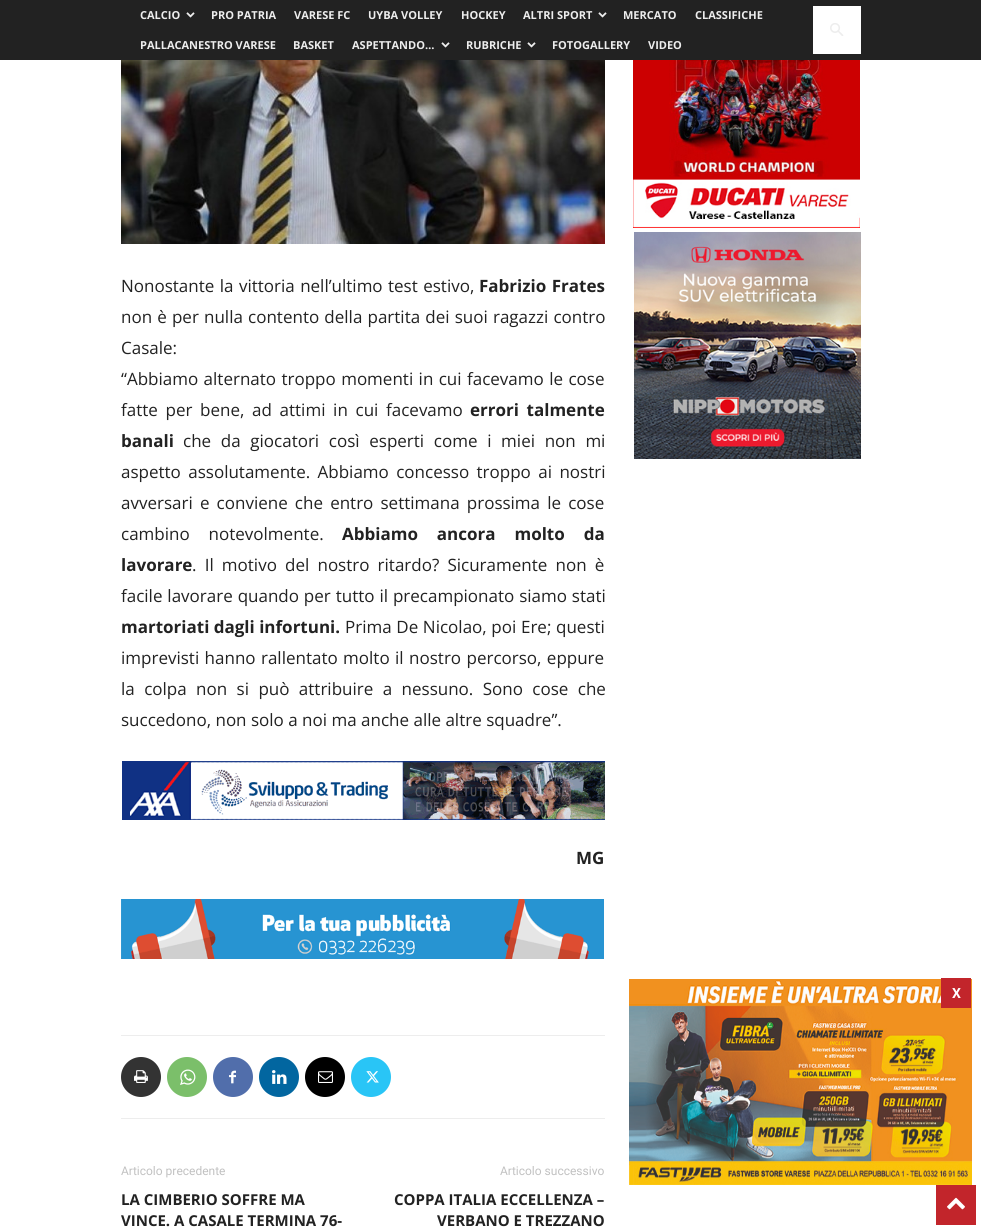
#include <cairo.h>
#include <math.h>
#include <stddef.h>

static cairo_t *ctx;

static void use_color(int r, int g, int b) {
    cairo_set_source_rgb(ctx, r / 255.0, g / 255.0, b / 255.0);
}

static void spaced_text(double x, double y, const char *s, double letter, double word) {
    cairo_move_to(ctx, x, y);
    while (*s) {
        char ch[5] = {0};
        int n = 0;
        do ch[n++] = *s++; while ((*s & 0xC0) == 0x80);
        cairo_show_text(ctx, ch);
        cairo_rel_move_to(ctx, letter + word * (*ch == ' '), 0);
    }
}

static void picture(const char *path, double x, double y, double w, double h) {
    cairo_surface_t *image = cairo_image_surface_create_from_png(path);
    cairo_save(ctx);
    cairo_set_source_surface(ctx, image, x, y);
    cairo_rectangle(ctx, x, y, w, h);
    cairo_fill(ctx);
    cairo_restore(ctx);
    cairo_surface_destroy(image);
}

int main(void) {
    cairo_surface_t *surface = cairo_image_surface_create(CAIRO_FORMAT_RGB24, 981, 1229);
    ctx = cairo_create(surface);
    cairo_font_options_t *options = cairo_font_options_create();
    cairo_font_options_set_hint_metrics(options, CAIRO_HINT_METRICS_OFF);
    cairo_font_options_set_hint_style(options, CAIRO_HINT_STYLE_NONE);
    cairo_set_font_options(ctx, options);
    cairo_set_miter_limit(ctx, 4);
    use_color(255, 255, 255);
    cairo_paint(ctx);
    use_color(34, 34, 34);
    cairo_rectangle(ctx, 0, 0, 981, 60);
    cairo_fill(ctx);
    cairo_select_font_face(ctx, "Open Sans", CAIRO_FONT_SLANT_NORMAL, CAIRO_FONT_WEIGHT_BOLD);
    cairo_set_font_size(ctx, 11);
    use_color(237, 237, 237);
    cairo_move_to(ctx, 140, 19);
    cairo_show_text(ctx, "CALCIO");
    picture("img1.png", 186, 12, 9, 6);
    cairo_move_to(ctx, 211, 19);
    cairo_show_text(ctx, "PRO PATRIA");
    cairo_move_to(ctx, 294, 19);
    cairo_show_text(ctx, "VARESE FC");
    cairo_move_to(ctx, 368, 19);
    cairo_show_text(ctx, "UYBA VOLLEY");
    cairo_move_to(ctx, 461, 19);
    cairo_show_text(ctx, "HOCKEY");
    cairo_move_to(ctx, 523, 19);
    cairo_show_text(ctx, "ALTRI SPORT");
    picture("img1.png", 598, 12, 9, 6);
    cairo_move_to(ctx, 623, 19);
    cairo_show_text(ctx, "MERCATO");
    cairo_move_to(ctx, 695, 19);
    cairo_show_text(ctx, "CLASSIFICHE");
    cairo_move_to(ctx, 140, 49);
    cairo_show_text(ctx, "PALLACANESTRO VARESE");
    cairo_move_to(ctx, 293, 49);
    cairo_show_text(ctx, "BASKET");
    cairo_move_to(ctx, 352, 49);
    cairo_show_text(ctx, "ASPETTANDO…");
    picture("img1.png", 441, 42, 9, 6);
    cairo_move_to(ctx, 466, 49);
    cairo_show_text(ctx, "RUBRICHE");
    picture("img1.png", 527, 42, 9, 6);
    cairo_move_to(ctx, 552, 49);
    cairo_show_text(ctx, "FOTOGALLERY");
    cairo_move_to(ctx, 648, 49);
    cairo_show_text(ctx, "VIDEO");
    use_color(255, 255, 255);
    cairo_rectangle(ctx, 813, 6, 48, 48);
    cairo_fill(ctx);
    picture("img2.png", 830, 23, 14, 13);
    picture("img3.png", 121, 60, 484, 184);
    cairo_select_font_face(ctx, "Open Sans", CAIRO_FONT_SLANT_NORMAL, CAIRO_FONT_WEIGHT_NORMAL);
    cairo_set_font_size(ctx, 17);
    use_color(34, 34, 34);
    spaced_text(121, 292, "Nonostante la vittoria nell’ultimo test estivo,", 0, 1);
    cairo_select_font_face(ctx, "Open Sans", CAIRO_FONT_SLANT_NORMAL, CAIRO_FONT_WEIGHT_BOLD);
    spaced_text(479, 292, "Fabrizio Frates", 0, 1);
    cairo_select_font_face(ctx, "Open Sans", CAIRO_FONT_SLANT_NORMAL, CAIRO_FONT_WEIGHT_NORMAL);
    spaced_text(121, 323, "non è per nulla contento della partita dei suoi ragazzi contro", 0, 0.75);
    cairo_move_to(ctx, 121, 354);
    cairo_show_text(ctx, "Casale:");
    spaced_text(121, 385, "“Abbiamo alternato troppo momenti in cui facevamo le cose", 0, 1);
    spaced_text(121, 416, "fatte per bene, ad attimi in cui facevamo", 0, 3.25);
    cairo_select_font_face(ctx, "Open Sans", CAIRO_FONT_SLANT_NORMAL, CAIRO_FONT_WEIGHT_BOLD);
    spaced_text(470, 416, "errori talmente", 0, 3.25);
    cairo_move_to(ctx, 121, 447);
    cairo_show_text(ctx, "banali");
    cairo_select_font_face(ctx, "Open Sans", CAIRO_FONT_SLANT_NORMAL, CAIRO_FONT_WEIGHT_NORMAL);
    spaced_text(183, 447, "che da giocatori così esperti come i miei non mi", 0, 5.25);
    spaced_text(121, 478, "aspetto assolutamente. Abbiamo concesso troppo ai nostri", 0, 3);
    spaced_text(121, 509, "avversari e conviene che entro settimana prossima le cose", 0, 2.75);
    spaced_text(121, 540, "cambino notevolmente.", 0, 14.5);
    cairo_select_font_face(ctx, "Open Sans", CAIRO_FONT_SLANT_NORMAL, CAIRO_FONT_WEIGHT_BOLD);
    spaced_text(342, 540, "Abbiamo ancora molto da", 0, 14.5);
    cairo_move_to(ctx, 121, 571);
    cairo_show_text(ctx, "lavorare");
    cairo_select_font_face(ctx, "Open Sans", CAIRO_FONT_SLANT_NORMAL, CAIRO_FONT_WEIGHT_NORMAL);
    spaced_text(192, 571, ". Il motivo del nostro ritardo? Sicuramente non è", 0, 3.75);
    spaced_text(121, 602, "facile lavorare quando per tutto il precampionato siamo stati", 0, 0.5);
    cairo_select_font_face(ctx, "Open Sans", CAIRO_FONT_SLANT_NORMAL, CAIRO_FONT_WEIGHT_BOLD);
    cairo_move_to(ctx, 121, 633);
    cairo_show_text(ctx, "martoriati dagli infortuni.");
    cairo_select_font_face(ctx, "Open Sans", CAIRO_FONT_SLANT_NORMAL, CAIRO_FONT_WEIGHT_NORMAL);
    spaced_text(345, 633, "Prima De Nicolao, poi Ere; questi", 0, 0.25);
    spaced_text(121, 664, "imprevisti hanno rallentato molto il nostro percorso, eppure", 0, 1);
    spaced_text(121, 695, "la colpa non si può attribuire a nessuno. Sono cose che", 0, 5);
    cairo_move_to(ctx, 121, 726);
    cairo_show_text(ctx, "succedono, non solo a noi ma anche alle altre squadre”.");
    picture("img4.png", 122, 761, 483, 59);
    cairo_select_font_face(ctx, "Open Sans", CAIRO_FONT_SLANT_NORMAL, CAIRO_FONT_WEIGHT_BOLD);
    cairo_move_to(ctx, 576, 864);
    cairo_show_text(ctx, "MG");
    picture("img5.png", 121, 899, 483, 60);
    use_color(237, 237, 237);
    cairo_rectangle(ctx, 121, 1035, 484, 1);
    cairo_fill(ctx);
    cairo_rectangle(ctx, 121, 1118, 484, 1);
    cairo_fill(ctx);
    use_color(51, 51, 51);
    cairo_arc(ctx, 141, 1077, 20, 0, 2 * M_PI);
    cairo_fill(ctx);
    picture("img6.png", 134, 1070, 14, 13);
    use_color(123, 191, 106);
    cairo_arc(ctx, 187, 1077, 20, 0, 2 * M_PI);
    cairo_fill(ctx);
    picture("img7.png", 180, 1069, 16, 16);
    use_color(81, 110, 171);
    cairo_arc(ctx, 233, 1077, 20, 0, 2 * M_PI);
    cairo_fill(ctx);
    picture("img8.png", 229, 1070, 7, 14);
    use_color(2, 102, 160);
    cairo_arc(ctx, 279, 1077, 20, 0, 2 * M_PI);
    cairo_fill(ctx);
    picture("img9.png", 272, 1070, 15, 14);
    use_color(0, 0, 0);
    cairo_arc(ctx, 325, 1077, 20, 0, 2 * M_PI);
    cairo_fill(ctx);
    picture("img10.png", 318, 1071, 15, 12);
    use_color(41, 197, 246);
    cairo_arc(ctx, 371, 1077, 20, 0, 2 * M_PI);
    cairo_fill(ctx);
    picture("img11.png", 366, 1071, 13, 12);
    cairo_select_font_face(ctx, "Roboto", CAIRO_FONT_SLANT_NORMAL, CAIRO_FONT_WEIGHT_NORMAL);
    cairo_set_font_size(ctx, 12);
    use_color(193, 193, 193);
    cairo_move_to(ctx, 121, 1175);
    cairo_show_text(ctx, "Articolo precedente");
    cairo_select_font_face(ctx, "Open Sans", CAIRO_FONT_SLANT_NORMAL, CAIRO_FONT_WEIGHT_BOLD);
    cairo_set_font_size(ctx, 15);
    use_color(34, 34, 34);
    cairo_move_to(ctx, 121, 1205);
    cairo_show_text(ctx, "LA CIMBERIO SOFFRE MA");
    cairo_move_to(ctx, 121, 1226);
    cairo_show_text(ctx, "VINCE. A CASALE TERMINA 76-");
    cairo_select_font_face(ctx, "Roboto", CAIRO_FONT_SLANT_NORMAL, CAIRO_FONT_WEIGHT_NORMAL);
    cairo_set_font_size(ctx, 12);
    use_color(193, 193, 193);
    cairo_move_to(ctx, 500, 1175);
    cairo_show_text(ctx, "Articolo successivo");
    cairo_select_font_face(ctx, "Open Sans", CAIRO_FONT_SLANT_NORMAL, CAIRO_FONT_WEIGHT_BOLD);
    cairo_set_font_size(ctx, 15);
    use_color(34, 34, 34);
    cairo_move_to(ctx, 394, 1205);
    cairo_show_text(ctx, "COPPA ITALIA ECCELLENZA –");
    cairo_move_to(ctx, 437, 1226);
    cairo_show_text(ctx, "VERBANO E TREZZANO");
    picture("img12.png", 633, 60, 227, 168);
    picture("img13.png", 634, 232, 227, 227);
    picture("img14.png", 629, 979, 343, 206);
    use_color(194, 37, 43);
    cairo_rectangle(ctx, 941, 978, 30, 30);
    cairo_fill(ctx);
    cairo_select_font_face(ctx, "Roboto", CAIRO_FONT_SLANT_NORMAL, CAIRO_FONT_WEIGHT_BOLD);
    cairo_set_font_size(ctx, 14);
    use_color(255, 255, 255);
    cairo_move_to(ctx, 952, 998);
    cairo_show_text(ctx, "X");
    use_color(194, 37, 43);
    cairo_rectangle(ctx, 936, 1185, 40, 40);
    cairo_fill(ctx);
    picture("img15.png", 947, 1197, 18, 13);
    cairo_surface_write_to_png(surface, "result.png");
    cairo_font_options_destroy(options);
    cairo_destroy(ctx);
    cairo_surface_destroy(surface);
    return 0;
}
